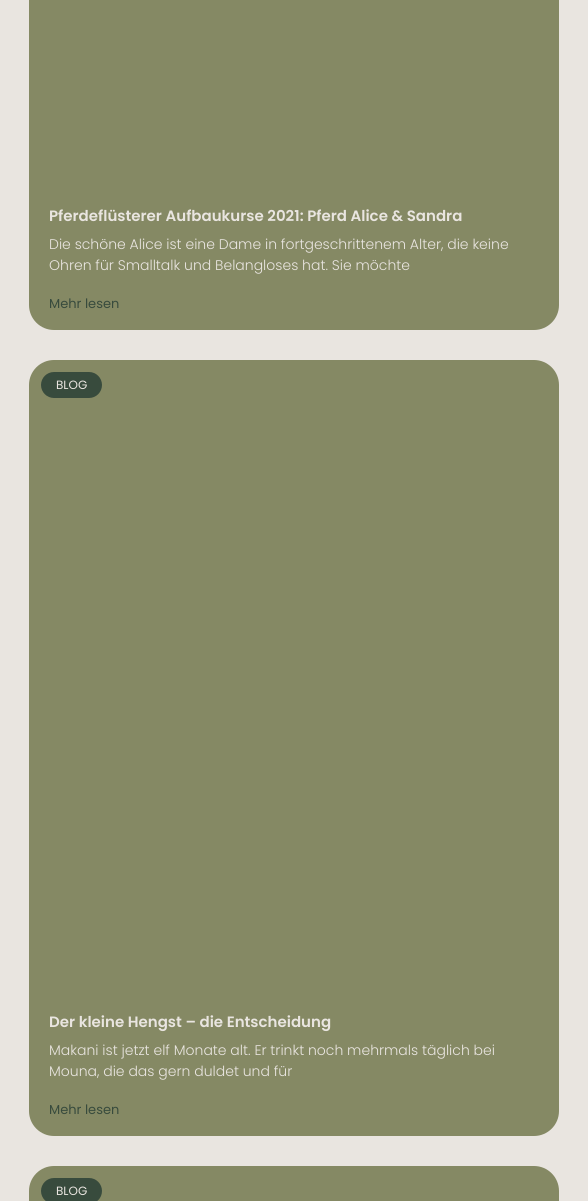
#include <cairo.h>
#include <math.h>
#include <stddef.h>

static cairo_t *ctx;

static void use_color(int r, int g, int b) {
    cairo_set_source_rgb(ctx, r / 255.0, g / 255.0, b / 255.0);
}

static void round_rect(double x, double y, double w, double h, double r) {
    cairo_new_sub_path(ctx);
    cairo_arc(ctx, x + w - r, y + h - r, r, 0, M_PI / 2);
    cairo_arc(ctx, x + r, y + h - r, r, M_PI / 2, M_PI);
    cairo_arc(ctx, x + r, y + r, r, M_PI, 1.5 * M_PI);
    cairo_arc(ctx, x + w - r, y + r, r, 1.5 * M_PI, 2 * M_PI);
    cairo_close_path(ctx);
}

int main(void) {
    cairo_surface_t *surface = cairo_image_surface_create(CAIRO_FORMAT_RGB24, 588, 1201);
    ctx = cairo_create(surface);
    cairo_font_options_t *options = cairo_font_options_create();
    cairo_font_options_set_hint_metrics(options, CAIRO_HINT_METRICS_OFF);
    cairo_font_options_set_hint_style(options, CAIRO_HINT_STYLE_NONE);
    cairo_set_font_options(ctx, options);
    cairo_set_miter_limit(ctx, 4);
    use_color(233, 229, 224);
    cairo_paint(ctx);
    use_color(133, 137, 100);
    round_rect(29, -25, 530, 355, 25);
    cairo_fill(ctx);
    cairo_select_font_face(ctx, "Poppins SemiBold", CAIRO_FONT_SLANT_NORMAL, CAIRO_FONT_WEIGHT_NORMAL);
    cairo_set_font_size(ctx, 15);
    use_color(233, 229, 224);
    cairo_move_to(ctx, 49, 221);
    cairo_show_text(ctx, "Pferdeflüsterer Aufbaukurse 2021: Pferd Alice & Sandra");
    cairo_select_font_face(ctx, "Poppins Light", CAIRO_FONT_SLANT_NORMAL, CAIRO_FONT_WEIGHT_NORMAL);
    cairo_set_font_size(ctx, 14);
    cairo_move_to(ctx, 49, 249);
    cairo_show_text(ctx, "Die schöne Alice ist eine Dame in fortgeschrittenem Alter, die keine");
    cairo_move_to(ctx, 49, 270);
    cairo_show_text(ctx, "Ohren für Smalltalk und Belangloses hat. Sie möchte");
    cairo_select_font_face(ctx, "Poppins", CAIRO_FONT_SLANT_NORMAL, CAIRO_FONT_WEIGHT_NORMAL);
    cairo_set_font_size(ctx, 13);
    use_color(56, 75, 61);
    cairo_move_to(ctx, 49, 308);
    cairo_show_text(ctx, "Mehr lesen");
    use_color(133, 137, 100);
    round_rect(29, 360, 530, 776, 25);
    cairo_fill(ctx);
    use_color(56, 75, 61);
    round_rect(41, 372, 61, 26, 13);
    cairo_fill(ctx);
    cairo_set_font_size(ctx, 12);
    use_color(233, 229, 224);
    cairo_move_to(ctx, 56, 389);
    cairo_show_text(ctx, "BLOG");
    cairo_select_font_face(ctx, "Poppins SemiBold", CAIRO_FONT_SLANT_NORMAL, CAIRO_FONT_WEIGHT_NORMAL);
    cairo_set_font_size(ctx, 15);
    cairo_move_to(ctx, 49, 1027);
    cairo_show_text(ctx, "Der kleine Hengst – die Entscheidung");
    cairo_select_font_face(ctx, "Poppins Light", CAIRO_FONT_SLANT_NORMAL, CAIRO_FONT_WEIGHT_NORMAL);
    cairo_set_font_size(ctx, 14);
    cairo_move_to(ctx, 49, 1055);
    cairo_show_text(ctx, "Makani ist jetzt elf Monate alt. Er trinkt noch mehrmals täglich bei");
    cairo_move_to(ctx, 49, 1076);
    cairo_show_text(ctx, "Mouna, die das gern duldet und für");
    cairo_select_font_face(ctx, "Poppins", CAIRO_FONT_SLANT_NORMAL, CAIRO_FONT_WEIGHT_NORMAL);
    cairo_set_font_size(ctx, 13);
    use_color(56, 75, 61);
    cairo_move_to(ctx, 49, 1114);
    cairo_show_text(ctx, "Mehr lesen");
    use_color(133, 137, 100);
    round_rect(29, 1166, 530, 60, 25);
    cairo_fill(ctx);
    use_color(56, 75, 61);
    round_rect(41, 1178, 61, 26, 13);
    cairo_fill(ctx);
    cairo_set_font_size(ctx, 12);
    use_color(233, 229, 224);
    cairo_move_to(ctx, 56, 1195);
    cairo_show_text(ctx, "BLOG");
    cairo_surface_write_to_png(surface, "result.png");
    cairo_font_options_destroy(options);
    cairo_destroy(ctx);
    cairo_surface_destroy(surface);
    return 0;
}
